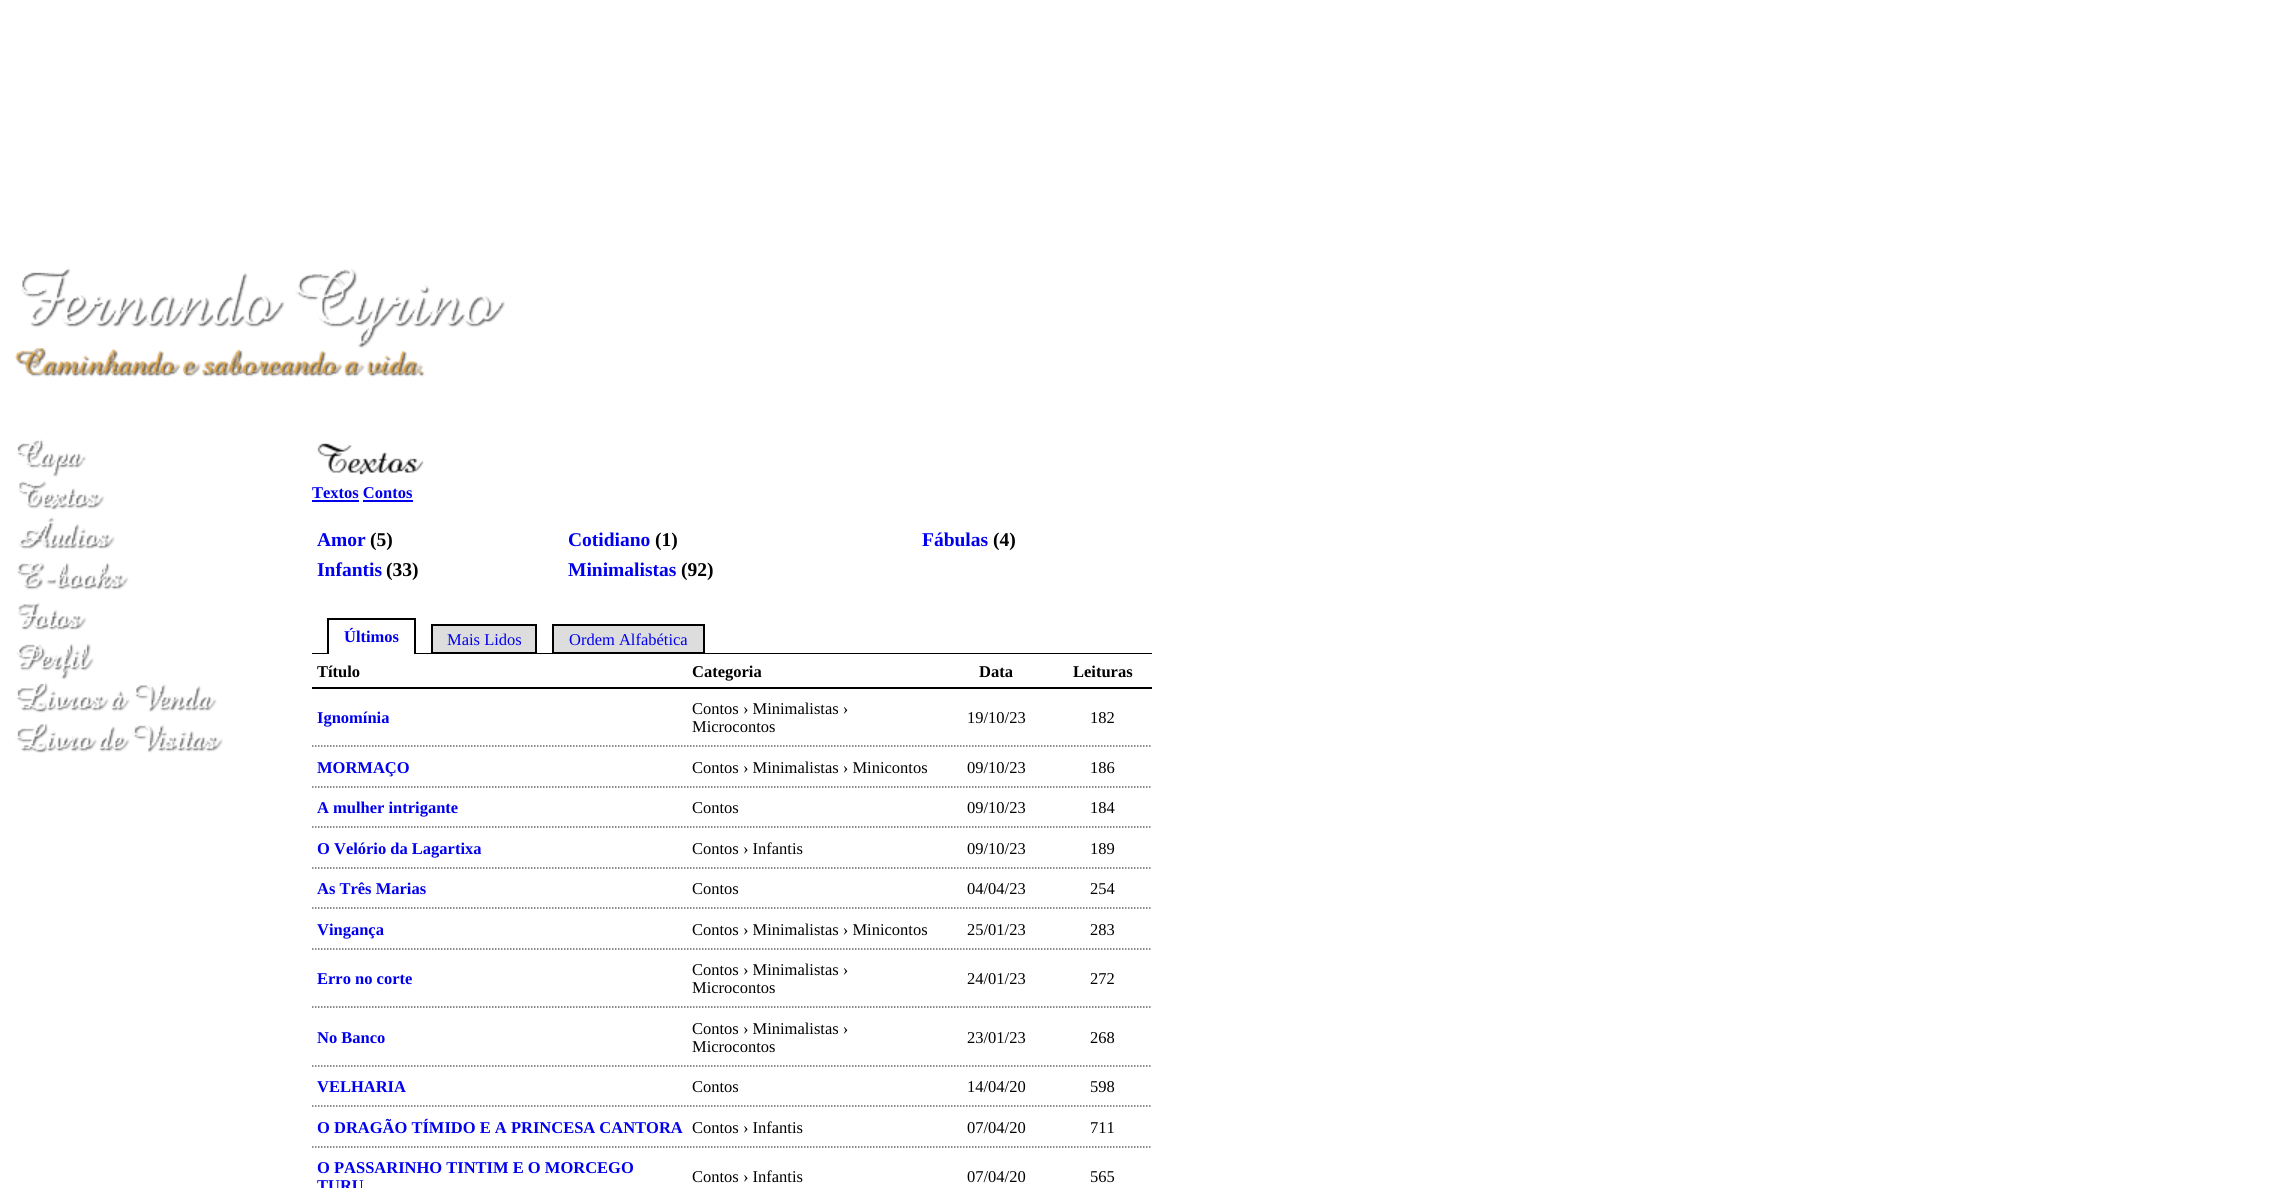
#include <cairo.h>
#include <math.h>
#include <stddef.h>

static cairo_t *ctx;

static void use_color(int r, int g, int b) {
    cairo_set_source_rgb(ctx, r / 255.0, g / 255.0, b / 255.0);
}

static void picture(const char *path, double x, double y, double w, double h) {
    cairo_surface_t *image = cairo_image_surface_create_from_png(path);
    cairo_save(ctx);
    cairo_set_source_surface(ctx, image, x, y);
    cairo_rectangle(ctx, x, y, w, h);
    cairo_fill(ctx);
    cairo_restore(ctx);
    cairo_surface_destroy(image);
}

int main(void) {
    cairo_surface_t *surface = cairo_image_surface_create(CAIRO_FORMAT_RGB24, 2294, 1188);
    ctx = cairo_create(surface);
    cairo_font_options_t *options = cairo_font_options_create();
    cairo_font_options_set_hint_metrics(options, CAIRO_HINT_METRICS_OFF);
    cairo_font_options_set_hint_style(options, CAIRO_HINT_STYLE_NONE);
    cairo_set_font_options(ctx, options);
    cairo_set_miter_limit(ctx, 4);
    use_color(255, 255, 255);
    cairo_paint(ctx);
    picture("img1.png", 20, 268, 485, 80);
    picture("img2.png", 15, 348, 410, 29);
    picture("img3.png", 15, 439, 71, 38);
    picture("img4.png", 18, 480, 87, 30);
    picture("img5.png", 18, 517, 97, 32);
    picture("img6.png", 17, 562, 112, 28);
    picture("img7.png", 17, 602, 70, 28);
    picture("img8.png", 16, 643, 78, 37);
    picture("img9.png", 15, 682, 202, 31);
    picture("img10.png", 15, 723, 208, 30);
    picture("img11.png", 317, 443, 107, 32);
    cairo_select_font_face(ctx, "Liberation Serif", CAIRO_FONT_SLANT_NORMAL, CAIRO_FONT_WEIGHT_BOLD);
    cairo_set_font_size(ctx, 16.5);
    use_color(0, 0, 238);
    cairo_move_to(ctx, 312, 498);
    cairo_show_text(ctx, "Textos Contos");
    cairo_rectangle(ctx, 312, 500, 47, 2);
    cairo_fill(ctx);
    cairo_rectangle(ctx, 363, 500, 50, 2);
    cairo_fill(ctx);
    cairo_set_font_size(ctx, 19.5);
    cairo_move_to(ctx, 317, 546);
    cairo_show_text(ctx, "Amor");
    use_color(0, 0, 0);
    cairo_move_to(ctx, 370, 546);
    cairo_show_text(ctx, "(5)");
    use_color(0, 0, 238);
    cairo_move_to(ctx, 568, 546);
    cairo_show_text(ctx, "Cotidiano");
    use_color(0, 0, 0);
    cairo_move_to(ctx, 655, 546);
    cairo_show_text(ctx, "(1)");
    use_color(0, 0, 238);
    cairo_move_to(ctx, 922, 546);
    cairo_show_text(ctx, "Fábulas");
    use_color(0, 0, 0);
    cairo_move_to(ctx, 993, 546);
    cairo_show_text(ctx, "(4)");
    use_color(0, 0, 238);
    cairo_move_to(ctx, 317, 576);
    cairo_show_text(ctx, "Infantis");
    use_color(0, 0, 0);
    cairo_move_to(ctx, 386, 576);
    cairo_show_text(ctx, "(33)");
    use_color(0, 0, 238);
    cairo_move_to(ctx, 568, 576);
    cairo_show_text(ctx, "Minimalistas");
    use_color(0, 0, 0);
    cairo_move_to(ctx, 681, 576);
    cairo_show_text(ctx, "(92)");
    cairo_rectangle(ctx, 312, 653, 840, 1);
    cairo_fill(ctx);
    use_color(255, 255, 255);
    cairo_rectangle(ctx, 329, 653, 85, 1);
    cairo_fill(ctx);
    use_color(0, 0, 0);
    cairo_rectangle(ctx, 327, 618, 89, 2);
    cairo_fill(ctx);
    cairo_rectangle(ctx, 414, 618, 2, 36);
    cairo_fill(ctx);
    cairo_rectangle(ctx, 327, 618, 2, 36);
    cairo_fill(ctx);
    cairo_set_font_size(ctx, 16.5);
    use_color(0, 0, 238);
    cairo_move_to(ctx, 344, 642);
    cairo_show_text(ctx, "Últimos");
    use_color(221, 221, 221);
    cairo_rectangle(ctx, 432, 625, 104, 28);
    cairo_fill_preserve(ctx);
    use_color(0, 0, 0);
    cairo_stroke(ctx);
    cairo_select_font_face(ctx, "Liberation Serif", CAIRO_FONT_SLANT_NORMAL, CAIRO_FONT_WEIGHT_NORMAL);
    use_color(0, 0, 238);
    cairo_move_to(ctx, 447, 645);
    cairo_show_text(ctx, "Mais Lidos");
    use_color(221, 221, 221);
    cairo_rectangle(ctx, 553, 625, 151, 28);
    cairo_fill_preserve(ctx);
    use_color(0, 0, 0);
    cairo_stroke(ctx);
    use_color(0, 0, 238);
    cairo_move_to(ctx, 569, 645);
    cairo_show_text(ctx, "Ordem Alfabética");
    use_color(0, 0, 0);
    cairo_rectangle(ctx, 312, 687, 840, 2);
    cairo_fill(ctx);
    cairo_select_font_face(ctx, "Liberation Serif", CAIRO_FONT_SLANT_NORMAL, CAIRO_FONT_WEIGHT_BOLD);
    cairo_move_to(ctx, 317, 677);
    cairo_show_text(ctx, "Título");
    cairo_move_to(ctx, 692, 677);
    cairo_show_text(ctx, "Categoria");
    cairo_move_to(ctx, 979, 677);
    cairo_show_text(ctx, "Data");
    cairo_move_to(ctx, 1073, 677);
    cairo_show_text(ctx, "Leituras");
    cairo_new_path(ctx);
    cairo_move_to(ctx, 312, 746);
    cairo_line_to(ctx, 687, 746);
    use_color(102, 102, 102);
    cairo_set_line_width(ctx, 1.5);
    cairo_set_dash(ctx, (double[]){1.5, 1.5}, 2, 0);
    cairo_stroke(ctx);
    use_color(0, 0, 238);
    cairo_move_to(ctx, 317, 723);
    cairo_show_text(ctx, "Ignomínia");
    cairo_new_path(ctx);
    cairo_move_to(ctx, 687, 746);
    cairo_line_to(ctx, 939, 746);
    use_color(102, 102, 102);
    cairo_stroke(ctx);
    cairo_select_font_face(ctx, "Liberation Serif", CAIRO_FONT_SLANT_NORMAL, CAIRO_FONT_WEIGHT_NORMAL);
    use_color(0, 0, 0);
    cairo_move_to(ctx, 692, 714);
    cairo_show_text(ctx, "Contos › Minimalistas ›");
    cairo_move_to(ctx, 692, 732);
    cairo_show_text(ctx, "Microcontos");
    cairo_new_path(ctx);
    cairo_move_to(ctx, 939, 746);
    cairo_line_to(ctx, 1053, 746);
    use_color(102, 102, 102);
    cairo_stroke(ctx);
    use_color(0, 0, 0);
    cairo_move_to(ctx, 967, 723);
    cairo_show_text(ctx, "19/10/23");
    cairo_new_path(ctx);
    cairo_move_to(ctx, 1053, 746);
    cairo_line_to(ctx, 1152, 746);
    use_color(102, 102, 102);
    cairo_stroke(ctx);
    use_color(0, 0, 0);
    cairo_move_to(ctx, 1090, 723);
    cairo_show_text(ctx, "182");
    cairo_new_path(ctx);
    cairo_move_to(ctx, 312, 787);
    cairo_line_to(ctx, 687, 787);
    use_color(102, 102, 102);
    cairo_stroke(ctx);
    cairo_select_font_face(ctx, "Liberation Serif", CAIRO_FONT_SLANT_NORMAL, CAIRO_FONT_WEIGHT_BOLD);
    use_color(0, 0, 238);
    cairo_move_to(ctx, 317, 773);
    cairo_show_text(ctx, "MORMAÇO");
    cairo_new_path(ctx);
    cairo_move_to(ctx, 687, 787);
    cairo_line_to(ctx, 939, 787);
    use_color(102, 102, 102);
    cairo_stroke(ctx);
    cairo_select_font_face(ctx, "Liberation Serif", CAIRO_FONT_SLANT_NORMAL, CAIRO_FONT_WEIGHT_NORMAL);
    use_color(0, 0, 0);
    cairo_move_to(ctx, 692, 773);
    cairo_show_text(ctx, "Contos › Minimalistas › Minicontos");
    cairo_new_path(ctx);
    cairo_move_to(ctx, 939, 787);
    cairo_line_to(ctx, 1053, 787);
    use_color(102, 102, 102);
    cairo_stroke(ctx);
    use_color(0, 0, 0);
    cairo_move_to(ctx, 967, 773);
    cairo_show_text(ctx, "09/10/23");
    cairo_new_path(ctx);
    cairo_move_to(ctx, 1053, 787);
    cairo_line_to(ctx, 1152, 787);
    use_color(102, 102, 102);
    cairo_stroke(ctx);
    use_color(0, 0, 0);
    cairo_move_to(ctx, 1090, 773);
    cairo_show_text(ctx, "186");
    cairo_new_path(ctx);
    cairo_move_to(ctx, 312, 827);
    cairo_line_to(ctx, 687, 827);
    use_color(102, 102, 102);
    cairo_stroke(ctx);
    cairo_select_font_face(ctx, "Liberation Serif", CAIRO_FONT_SLANT_NORMAL, CAIRO_FONT_WEIGHT_BOLD);
    use_color(0, 0, 238);
    cairo_move_to(ctx, 317, 813);
    cairo_show_text(ctx, "A mulher intrigante");
    cairo_new_path(ctx);
    cairo_move_to(ctx, 687, 827);
    cairo_line_to(ctx, 939, 827);
    use_color(102, 102, 102);
    cairo_stroke(ctx);
    cairo_select_font_face(ctx, "Liberation Serif", CAIRO_FONT_SLANT_NORMAL, CAIRO_FONT_WEIGHT_NORMAL);
    use_color(0, 0, 0);
    cairo_move_to(ctx, 692, 813);
    cairo_show_text(ctx, "Contos");
    cairo_new_path(ctx);
    cairo_move_to(ctx, 939, 827);
    cairo_line_to(ctx, 1053, 827);
    use_color(102, 102, 102);
    cairo_stroke(ctx);
    use_color(0, 0, 0);
    cairo_move_to(ctx, 967, 813);
    cairo_show_text(ctx, "09/10/23");
    cairo_new_path(ctx);
    cairo_move_to(ctx, 1053, 827);
    cairo_line_to(ctx, 1152, 827);
    use_color(102, 102, 102);
    cairo_stroke(ctx);
    use_color(0, 0, 0);
    cairo_move_to(ctx, 1090, 813);
    cairo_show_text(ctx, "184");
    cairo_new_path(ctx);
    cairo_move_to(ctx, 312, 868);
    cairo_line_to(ctx, 687, 868);
    use_color(102, 102, 102);
    cairo_stroke(ctx);
    cairo_select_font_face(ctx, "Liberation Serif", CAIRO_FONT_SLANT_NORMAL, CAIRO_FONT_WEIGHT_BOLD);
    use_color(0, 0, 238);
    cairo_move_to(ctx, 317, 854);
    cairo_show_text(ctx, "O Velório da Lagartixa");
    cairo_new_path(ctx);
    cairo_move_to(ctx, 687, 868);
    cairo_line_to(ctx, 939, 868);
    use_color(102, 102, 102);
    cairo_stroke(ctx);
    cairo_select_font_face(ctx, "Liberation Serif", CAIRO_FONT_SLANT_NORMAL, CAIRO_FONT_WEIGHT_NORMAL);
    use_color(0, 0, 0);
    cairo_move_to(ctx, 692, 854);
    cairo_show_text(ctx, "Contos › Infantis");
    cairo_new_path(ctx);
    cairo_move_to(ctx, 939, 868);
    cairo_line_to(ctx, 1053, 868);
    use_color(102, 102, 102);
    cairo_stroke(ctx);
    use_color(0, 0, 0);
    cairo_move_to(ctx, 967, 854);
    cairo_show_text(ctx, "09/10/23");
    cairo_new_path(ctx);
    cairo_move_to(ctx, 1053, 868);
    cairo_line_to(ctx, 1152, 868);
    use_color(102, 102, 102);
    cairo_stroke(ctx);
    use_color(0, 0, 0);
    cairo_move_to(ctx, 1090, 854);
    cairo_show_text(ctx, "189");
    cairo_new_path(ctx);
    cairo_move_to(ctx, 312, 908);
    cairo_line_to(ctx, 687, 908);
    use_color(102, 102, 102);
    cairo_stroke(ctx);
    cairo_select_font_face(ctx, "Liberation Serif", CAIRO_FONT_SLANT_NORMAL, CAIRO_FONT_WEIGHT_BOLD);
    use_color(0, 0, 238);
    cairo_move_to(ctx, 317, 894);
    cairo_show_text(ctx, "As Três Marias");
    cairo_new_path(ctx);
    cairo_move_to(ctx, 687, 908);
    cairo_line_to(ctx, 939, 908);
    use_color(102, 102, 102);
    cairo_stroke(ctx);
    cairo_select_font_face(ctx, "Liberation Serif", CAIRO_FONT_SLANT_NORMAL, CAIRO_FONT_WEIGHT_NORMAL);
    use_color(0, 0, 0);
    cairo_move_to(ctx, 692, 894);
    cairo_show_text(ctx, "Contos");
    cairo_new_path(ctx);
    cairo_move_to(ctx, 939, 908);
    cairo_line_to(ctx, 1053, 908);
    use_color(102, 102, 102);
    cairo_stroke(ctx);
    use_color(0, 0, 0);
    cairo_move_to(ctx, 967, 894);
    cairo_show_text(ctx, "04/04/23");
    cairo_new_path(ctx);
    cairo_move_to(ctx, 1053, 908);
    cairo_line_to(ctx, 1152, 908);
    use_color(102, 102, 102);
    cairo_stroke(ctx);
    use_color(0, 0, 0);
    cairo_move_to(ctx, 1090, 894);
    cairo_show_text(ctx, "254");
    cairo_new_path(ctx);
    cairo_move_to(ctx, 312, 949);
    cairo_line_to(ctx, 687, 949);
    use_color(102, 102, 102);
    cairo_stroke(ctx);
    cairo_select_font_face(ctx, "Liberation Serif", CAIRO_FONT_SLANT_NORMAL, CAIRO_FONT_WEIGHT_BOLD);
    use_color(0, 0, 238);
    cairo_move_to(ctx, 317, 935);
    cairo_show_text(ctx, "Vingança");
    cairo_new_path(ctx);
    cairo_move_to(ctx, 687, 949);
    cairo_line_to(ctx, 939, 949);
    use_color(102, 102, 102);
    cairo_stroke(ctx);
    cairo_select_font_face(ctx, "Liberation Serif", CAIRO_FONT_SLANT_NORMAL, CAIRO_FONT_WEIGHT_NORMAL);
    use_color(0, 0, 0);
    cairo_move_to(ctx, 692, 935);
    cairo_show_text(ctx, "Contos › Minimalistas › Minicontos");
    cairo_new_path(ctx);
    cairo_move_to(ctx, 939, 949);
    cairo_line_to(ctx, 1053, 949);
    use_color(102, 102, 102);
    cairo_stroke(ctx);
    use_color(0, 0, 0);
    cairo_move_to(ctx, 967, 935);
    cairo_show_text(ctx, "25/01/23");
    cairo_new_path(ctx);
    cairo_move_to(ctx, 1053, 949);
    cairo_line_to(ctx, 1152, 949);
    use_color(102, 102, 102);
    cairo_stroke(ctx);
    use_color(0, 0, 0);
    cairo_move_to(ctx, 1090, 935);
    cairo_show_text(ctx, "283");
    cairo_new_path(ctx);
    cairo_move_to(ctx, 312, 1007);
    cairo_line_to(ctx, 687, 1007);
    use_color(102, 102, 102);
    cairo_stroke(ctx);
    cairo_select_font_face(ctx, "Liberation Serif", CAIRO_FONT_SLANT_NORMAL, CAIRO_FONT_WEIGHT_BOLD);
    use_color(0, 0, 238);
    cairo_move_to(ctx, 317, 984);
    cairo_show_text(ctx, "Erro no corte");
    cairo_new_path(ctx);
    cairo_move_to(ctx, 687, 1007);
    cairo_line_to(ctx, 939, 1007);
    use_color(102, 102, 102);
    cairo_stroke(ctx);
    cairo_select_font_face(ctx, "Liberation Serif", CAIRO_FONT_SLANT_NORMAL, CAIRO_FONT_WEIGHT_NORMAL);
    use_color(0, 0, 0);
    cairo_move_to(ctx, 692, 975);
    cairo_show_text(ctx, "Contos › Minimalistas ›");
    cairo_move_to(ctx, 692, 993);
    cairo_show_text(ctx, "Microcontos");
    cairo_new_path(ctx);
    cairo_move_to(ctx, 939, 1007);
    cairo_line_to(ctx, 1053, 1007);
    use_color(102, 102, 102);
    cairo_stroke(ctx);
    use_color(0, 0, 0);
    cairo_move_to(ctx, 967, 984);
    cairo_show_text(ctx, "24/01/23");
    cairo_new_path(ctx);
    cairo_move_to(ctx, 1053, 1007);
    cairo_line_to(ctx, 1152, 1007);
    use_color(102, 102, 102);
    cairo_stroke(ctx);
    use_color(0, 0, 0);
    cairo_move_to(ctx, 1090, 984);
    cairo_show_text(ctx, "272");
    cairo_new_path(ctx);
    cairo_move_to(ctx, 312, 1066);
    cairo_line_to(ctx, 687, 1066);
    use_color(102, 102, 102);
    cairo_stroke(ctx);
    cairo_select_font_face(ctx, "Liberation Serif", CAIRO_FONT_SLANT_NORMAL, CAIRO_FONT_WEIGHT_BOLD);
    use_color(0, 0, 238);
    cairo_move_to(ctx, 317, 1043);
    cairo_show_text(ctx, "No Banco");
    cairo_new_path(ctx);
    cairo_move_to(ctx, 687, 1066);
    cairo_line_to(ctx, 939, 1066);
    use_color(102, 102, 102);
    cairo_stroke(ctx);
    cairo_select_font_face(ctx, "Liberation Serif", CAIRO_FONT_SLANT_NORMAL, CAIRO_FONT_WEIGHT_NORMAL);
    use_color(0, 0, 0);
    cairo_move_to(ctx, 692, 1034);
    cairo_show_text(ctx, "Contos › Minimalistas ›");
    cairo_move_to(ctx, 692, 1052);
    cairo_show_text(ctx, "Microcontos");
    cairo_new_path(ctx);
    cairo_move_to(ctx, 939, 1066);
    cairo_line_to(ctx, 1053, 1066);
    use_color(102, 102, 102);
    cairo_stroke(ctx);
    use_color(0, 0, 0);
    cairo_move_to(ctx, 967, 1043);
    cairo_show_text(ctx, "23/01/23");
    cairo_new_path(ctx);
    cairo_move_to(ctx, 1053, 1066);
    cairo_line_to(ctx, 1152, 1066);
    use_color(102, 102, 102);
    cairo_stroke(ctx);
    use_color(0, 0, 0);
    cairo_move_to(ctx, 1090, 1043);
    cairo_show_text(ctx, "268");
    cairo_new_path(ctx);
    cairo_move_to(ctx, 312, 1106);
    cairo_line_to(ctx, 687, 1106);
    use_color(102, 102, 102);
    cairo_stroke(ctx);
    cairo_select_font_face(ctx, "Liberation Serif", CAIRO_FONT_SLANT_NORMAL, CAIRO_FONT_WEIGHT_BOLD);
    use_color(0, 0, 238);
    cairo_move_to(ctx, 317, 1092);
    cairo_show_text(ctx, "VELHARIA");
    cairo_new_path(ctx);
    cairo_move_to(ctx, 687, 1106);
    cairo_line_to(ctx, 939, 1106);
    use_color(102, 102, 102);
    cairo_stroke(ctx);
    cairo_select_font_face(ctx, "Liberation Serif", CAIRO_FONT_SLANT_NORMAL, CAIRO_FONT_WEIGHT_NORMAL);
    use_color(0, 0, 0);
    cairo_move_to(ctx, 692, 1092);
    cairo_show_text(ctx, "Contos");
    cairo_new_path(ctx);
    cairo_move_to(ctx, 939, 1106);
    cairo_line_to(ctx, 1053, 1106);
    use_color(102, 102, 102);
    cairo_stroke(ctx);
    use_color(0, 0, 0);
    cairo_move_to(ctx, 967, 1092);
    cairo_show_text(ctx, "14/04/20");
    cairo_new_path(ctx);
    cairo_move_to(ctx, 1053, 1106);
    cairo_line_to(ctx, 1152, 1106);
    use_color(102, 102, 102);
    cairo_stroke(ctx);
    use_color(0, 0, 0);
    cairo_move_to(ctx, 1090, 1092);
    cairo_show_text(ctx, "598");
    cairo_new_path(ctx);
    cairo_move_to(ctx, 312, 1147);
    cairo_line_to(ctx, 687, 1147);
    use_color(102, 102, 102);
    cairo_stroke(ctx);
    cairo_select_font_face(ctx, "Liberation Serif", CAIRO_FONT_SLANT_NORMAL, CAIRO_FONT_WEIGHT_BOLD);
    use_color(0, 0, 238);
    cairo_move_to(ctx, 317, 1133);
    cairo_show_text(ctx, "O DRAGÃO TÍMIDO E A PRINCESA CANTORA");
    cairo_new_path(ctx);
    cairo_move_to(ctx, 687, 1147);
    cairo_line_to(ctx, 939, 1147);
    use_color(102, 102, 102);
    cairo_stroke(ctx);
    cairo_select_font_face(ctx, "Liberation Serif", CAIRO_FONT_SLANT_NORMAL, CAIRO_FONT_WEIGHT_NORMAL);
    use_color(0, 0, 0);
    cairo_move_to(ctx, 692, 1133);
    cairo_show_text(ctx, "Contos › Infantis");
    cairo_new_path(ctx);
    cairo_move_to(ctx, 939, 1147);
    cairo_line_to(ctx, 1053, 1147);
    use_color(102, 102, 102);
    cairo_stroke(ctx);
    use_color(0, 0, 0);
    cairo_move_to(ctx, 967, 1133);
    cairo_show_text(ctx, "07/04/20");
    cairo_new_path(ctx);
    cairo_move_to(ctx, 1053, 1147);
    cairo_line_to(ctx, 1152, 1147);
    use_color(102, 102, 102);
    cairo_stroke(ctx);
    use_color(0, 0, 0);
    cairo_move_to(ctx, 1090, 1133);
    cairo_show_text(ctx, "711");
    cairo_select_font_face(ctx, "Liberation Serif", CAIRO_FONT_SLANT_NORMAL, CAIRO_FONT_WEIGHT_BOLD);
    use_color(0, 0, 238);
    cairo_move_to(ctx, 317, 1173);
    cairo_show_text(ctx, "O PASSARINHO TINTIM E O MORCEGO");
    cairo_move_to(ctx, 317, 1191);
    cairo_show_text(ctx, "TURU");
    cairo_select_font_face(ctx, "Liberation Serif", CAIRO_FONT_SLANT_NORMAL, CAIRO_FONT_WEIGHT_NORMAL);
    use_color(0, 0, 0);
    cairo_move_to(ctx, 692, 1182);
    cairo_show_text(ctx, "Contos › Infantis");
    cairo_move_to(ctx, 967, 1182);
    cairo_show_text(ctx, "07/04/20");
    cairo_move_to(ctx, 1090, 1182);
    cairo_show_text(ctx, "565");
    cairo_surface_write_to_png(surface, "result.png");
    cairo_font_options_destroy(options);
    cairo_destroy(ctx);
    cairo_surface_destroy(surface);
    return 0;
}
